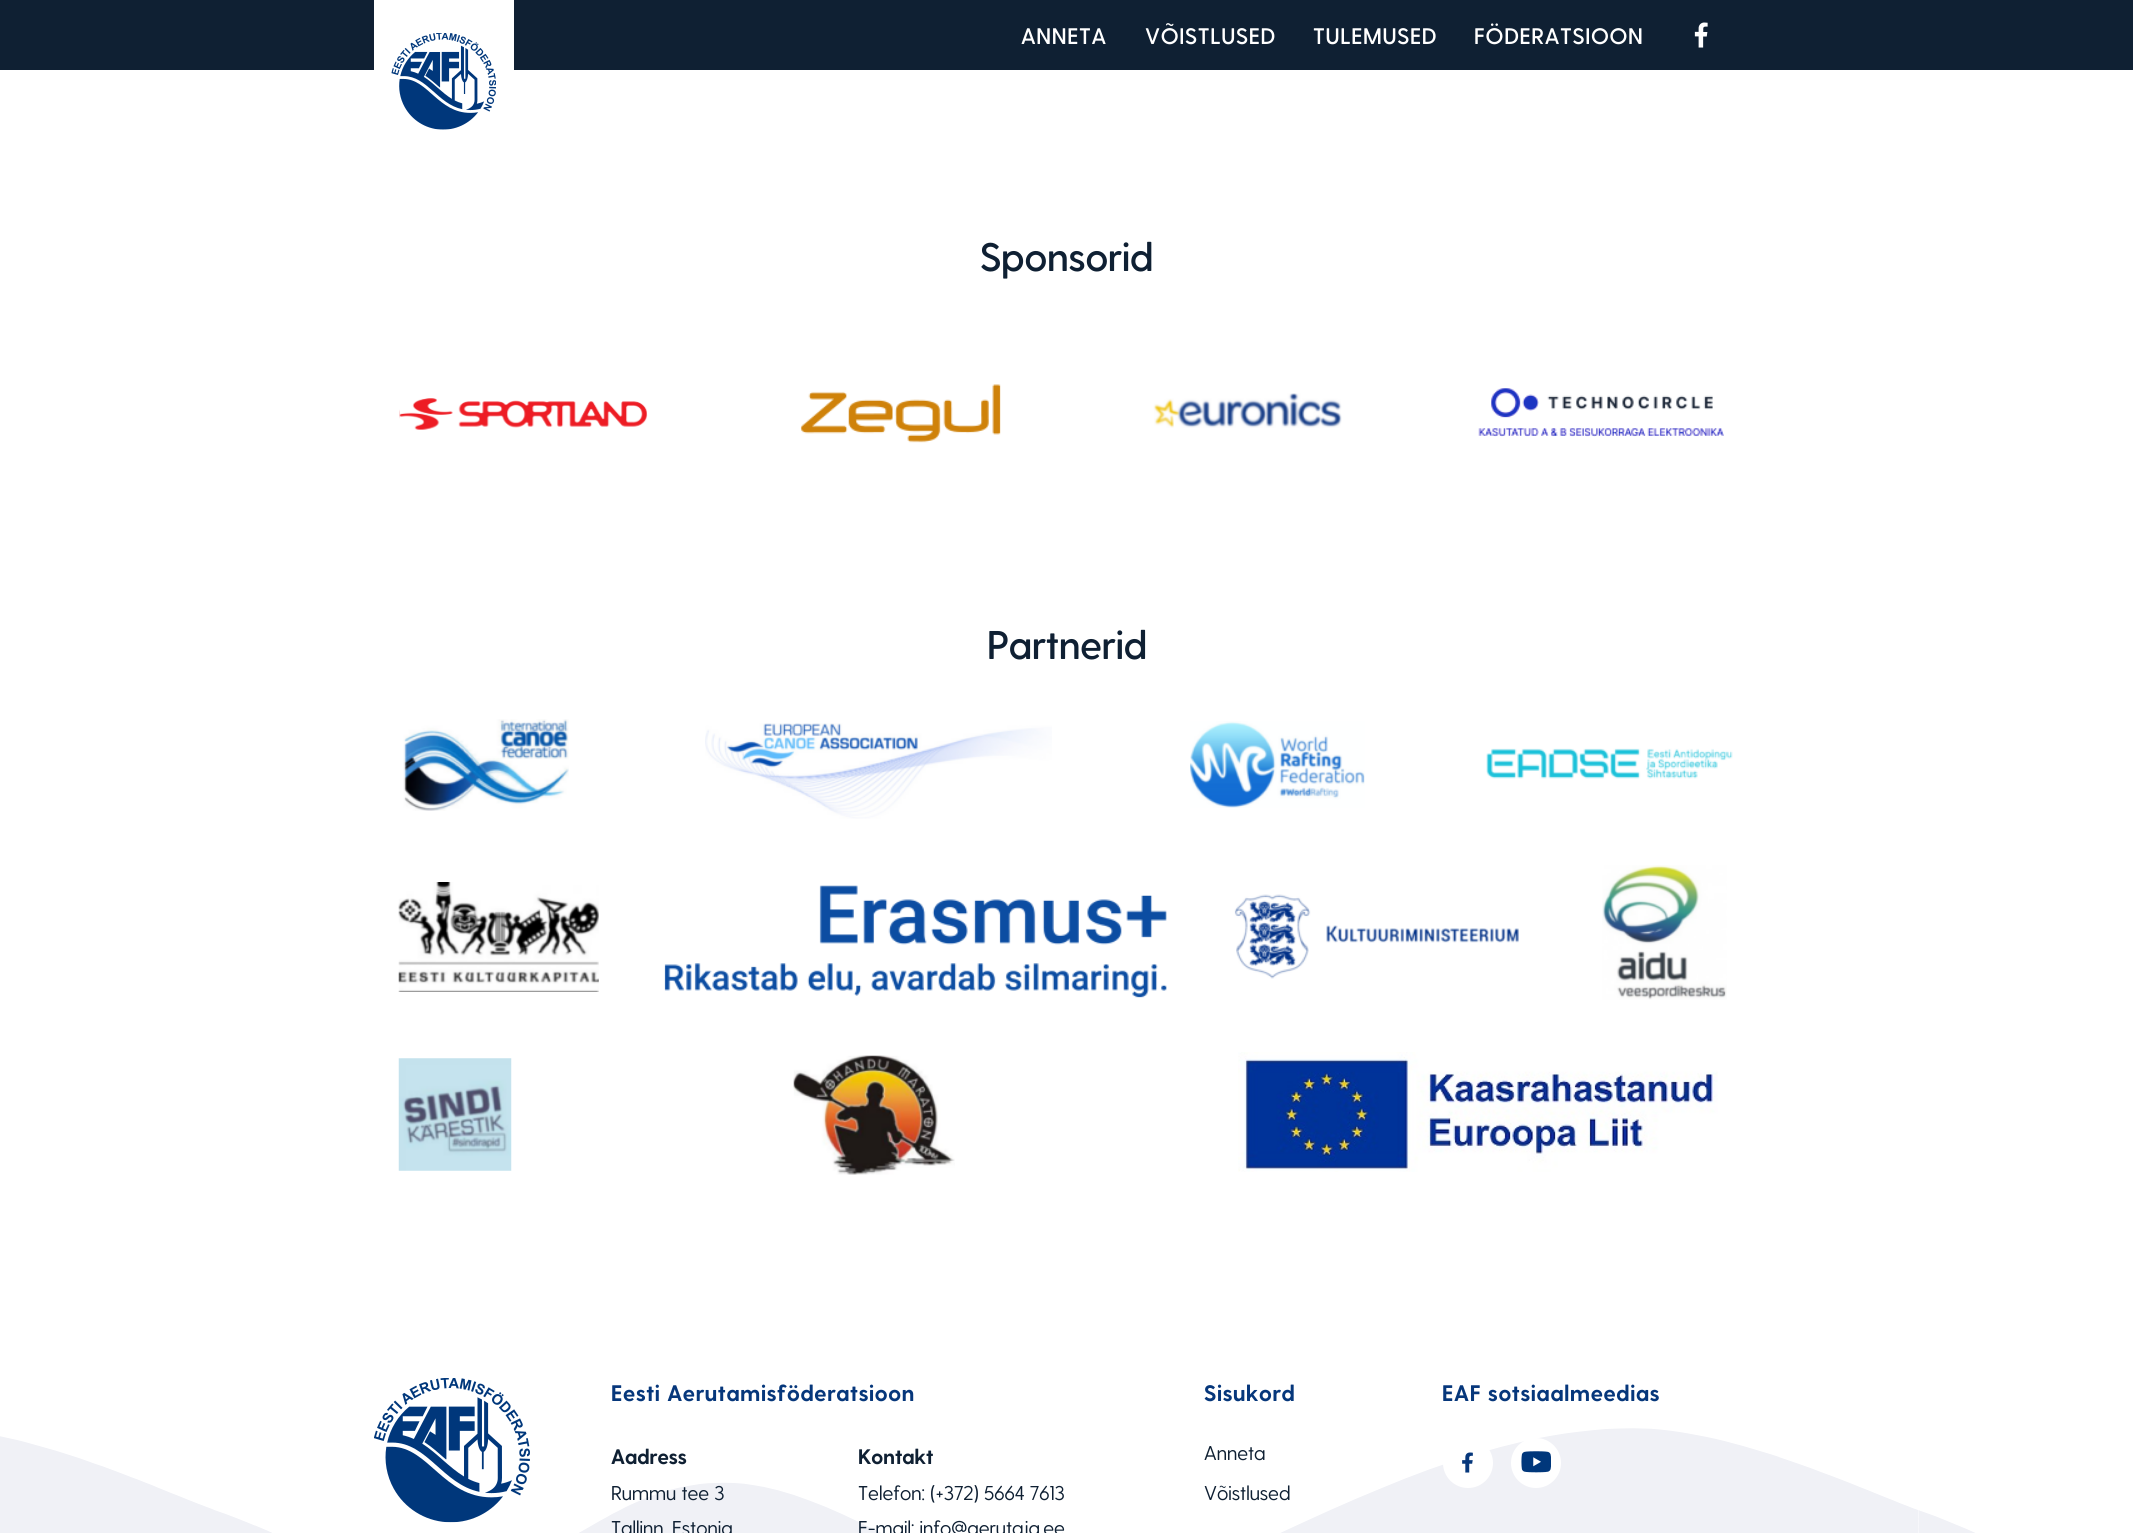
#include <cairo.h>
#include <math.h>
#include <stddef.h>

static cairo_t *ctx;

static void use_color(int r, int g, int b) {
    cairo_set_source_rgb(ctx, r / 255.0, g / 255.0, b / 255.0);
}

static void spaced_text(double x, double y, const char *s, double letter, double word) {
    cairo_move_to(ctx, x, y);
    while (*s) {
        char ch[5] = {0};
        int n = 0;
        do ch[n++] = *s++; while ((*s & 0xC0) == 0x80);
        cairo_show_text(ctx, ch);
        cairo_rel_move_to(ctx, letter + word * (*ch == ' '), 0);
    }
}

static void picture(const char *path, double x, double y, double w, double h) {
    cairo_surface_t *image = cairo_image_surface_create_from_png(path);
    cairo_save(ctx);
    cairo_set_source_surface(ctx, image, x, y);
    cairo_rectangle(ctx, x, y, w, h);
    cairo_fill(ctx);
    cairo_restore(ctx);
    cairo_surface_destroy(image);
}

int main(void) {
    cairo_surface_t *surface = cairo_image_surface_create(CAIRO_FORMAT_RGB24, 2133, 1533);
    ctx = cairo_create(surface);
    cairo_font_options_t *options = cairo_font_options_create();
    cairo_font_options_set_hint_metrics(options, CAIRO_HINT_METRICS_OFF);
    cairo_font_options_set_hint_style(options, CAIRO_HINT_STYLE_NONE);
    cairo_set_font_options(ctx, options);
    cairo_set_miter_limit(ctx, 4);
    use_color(255, 255, 255);
    cairo_paint(ctx);
    use_color(15, 32, 51);
    cairo_rectangle(ctx, 0, 0, 2133, 70);
    cairo_fill(ctx);
    use_color(255, 255, 255);
    cairo_new_path(ctx);
    cairo_move_to(ctx, 374, 0);
    cairo_line_to(ctx, 514, 0);
    cairo_line_to(ctx, 514, 80);
    cairo_curve_to(ctx, 514, 118.5, 482.5, 150, 444, 150);
    cairo_curve_to(ctx, 405.5, 150, 374, 118.5, 374, 80);
    cairo_close_path(ctx);
    cairo_fill(ctx);
    picture("img1.png", 391, 33, 105, 97);
    cairo_select_font_face(ctx, "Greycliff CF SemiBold", CAIRO_FONT_SLANT_NORMAL, CAIRO_FONT_WEIGHT_NORMAL);
    cairo_set_font_size(ctx, 22.5);
    spaced_text(1021, 44, "ANNETA", 0.7, 0);
    spaced_text(1145, 44, "VÕISTLUSED", 0.7, 0);
    spaced_text(1313, 44, "TULEMUSED", 0.7, 0);
    spaced_text(1474, 44, "FÖDERATSIOON", 0.7, 0);
    picture("img2.png", 1694, 22, 14, 26);
    cairo_set_font_size(ctx, 40);
    use_color(15, 32, 51);
    cairo_move_to(ctx, 980, 271);
    cairo_show_text(ctx, "Sponsorid");
    picture("img3.png", 399, 398, 249, 32);
    picture("img4.png", 800, 384, 201, 59);
    picture("img5.png", 1153, 393, 189, 35);
    picture("img6.png", 1478, 388, 246, 49);
    cairo_move_to(ctx, 987, 659);
    cairo_show_text(ctx, "Partnerid");
    picture("img7.png", 403, 719, 166, 92);
    picture("img8.png", 705, 723, 347, 96);
    picture("img9.png", 1190, 721, 175, 87);
    picture("img10.png", 1486, 748, 247, 31);
    picture("img11.png", 398, 882, 201, 110);
    picture("img12.png", 664, 885, 503, 113);
    picture("img13.png", 1234, 894, 285, 85);
    picture("img14.png", 1602, 865, 125, 135);
    picture("img15.png", 398, 1058, 114, 113);
    picture("img16.png", 793, 1055, 162, 120);
    picture("img17.png", 1238, 1052, 480, 120);
    picture("img18.png", 0, 1428, 1975, 105);
    picture("img19.png", 374, 1378, 156, 145);
    cairo_select_font_face(ctx, "Greycliff CF", CAIRO_FONT_SLANT_NORMAL, CAIRO_FONT_WEIGHT_BOLD);
    cairo_set_font_size(ctx, 22.5);
    use_color(6, 55, 123);
    spaced_text(611, 1401, "Eesti Aerutamisföderatsioon", 0.7, 0);
    cairo_set_font_size(ctx, 21);
    use_color(15, 32, 51);
    cairo_move_to(ctx, 611, 1464);
    cairo_show_text(ctx, "Aadress");
    cairo_select_font_face(ctx, "Greycliff CF", CAIRO_FONT_SLANT_NORMAL, CAIRO_FONT_WEIGHT_NORMAL);
    cairo_set_font_size(ctx, 20);
    cairo_move_to(ctx, 611, 1500);
    cairo_show_text(ctx, "Rummu tee 3");
    cairo_move_to(ctx, 611, 1535);
    cairo_show_text(ctx, "Tallinn, Estonia");
    cairo_select_font_face(ctx, "Greycliff CF", CAIRO_FONT_SLANT_NORMAL, CAIRO_FONT_WEIGHT_BOLD);
    cairo_set_font_size(ctx, 21);
    cairo_move_to(ctx, 858, 1464);
    cairo_show_text(ctx, "Kontakt");
    cairo_select_font_face(ctx, "Greycliff CF", CAIRO_FONT_SLANT_NORMAL, CAIRO_FONT_WEIGHT_NORMAL);
    cairo_set_font_size(ctx, 20);
    cairo_move_to(ctx, 858, 1500);
    cairo_show_text(ctx, "Telefon: (+372) 5664 7613");
    cairo_move_to(ctx, 858, 1535);
    cairo_show_text(ctx, "E-mail: info@aerutaja.ee");
    cairo_select_font_face(ctx, "Greycliff CF", CAIRO_FONT_SLANT_NORMAL, CAIRO_FONT_WEIGHT_BOLD);
    cairo_set_font_size(ctx, 22.5);
    use_color(6, 55, 123);
    spaced_text(1204, 1401, "Sisukord", 0.7, 0);
    cairo_select_font_face(ctx, "Greycliff CF", CAIRO_FONT_SLANT_NORMAL, CAIRO_FONT_WEIGHT_NORMAL);
    cairo_set_font_size(ctx, 20);
    use_color(15, 32, 51);
    cairo_move_to(ctx, 1204, 1460);
    cairo_show_text(ctx, "Anneta");
    cairo_move_to(ctx, 1204, 1500);
    cairo_show_text(ctx, "Võistlused");
    cairo_select_font_face(ctx, "Greycliff CF", CAIRO_FONT_SLANT_NORMAL, CAIRO_FONT_WEIGHT_BOLD);
    cairo_set_font_size(ctx, 22.5);
    use_color(6, 55, 123);
    spaced_text(1442, 1401, "EAF sotsiaalmeedias", 0.7, 0);
    use_color(255, 255, 255);
    cairo_new_path(ctx);
    cairo_arc(ctx, 1468, 1463, 25, 0, 2 * M_PI);
    cairo_fill(ctx);
    picture("img20.png", 1462, 1452, 11, 21);
    cairo_arc(ctx, 1536, 1463, 25, 0, 2 * M_PI);
    cairo_fill(ctx);
    picture("img21.png", 1521, 1451, 30, 22);
    cairo_surface_write_to_png(surface, "result.png");
    cairo_font_options_destroy(options);
    cairo_destroy(ctx);
    cairo_surface_destroy(surface);
    return 0;
}
